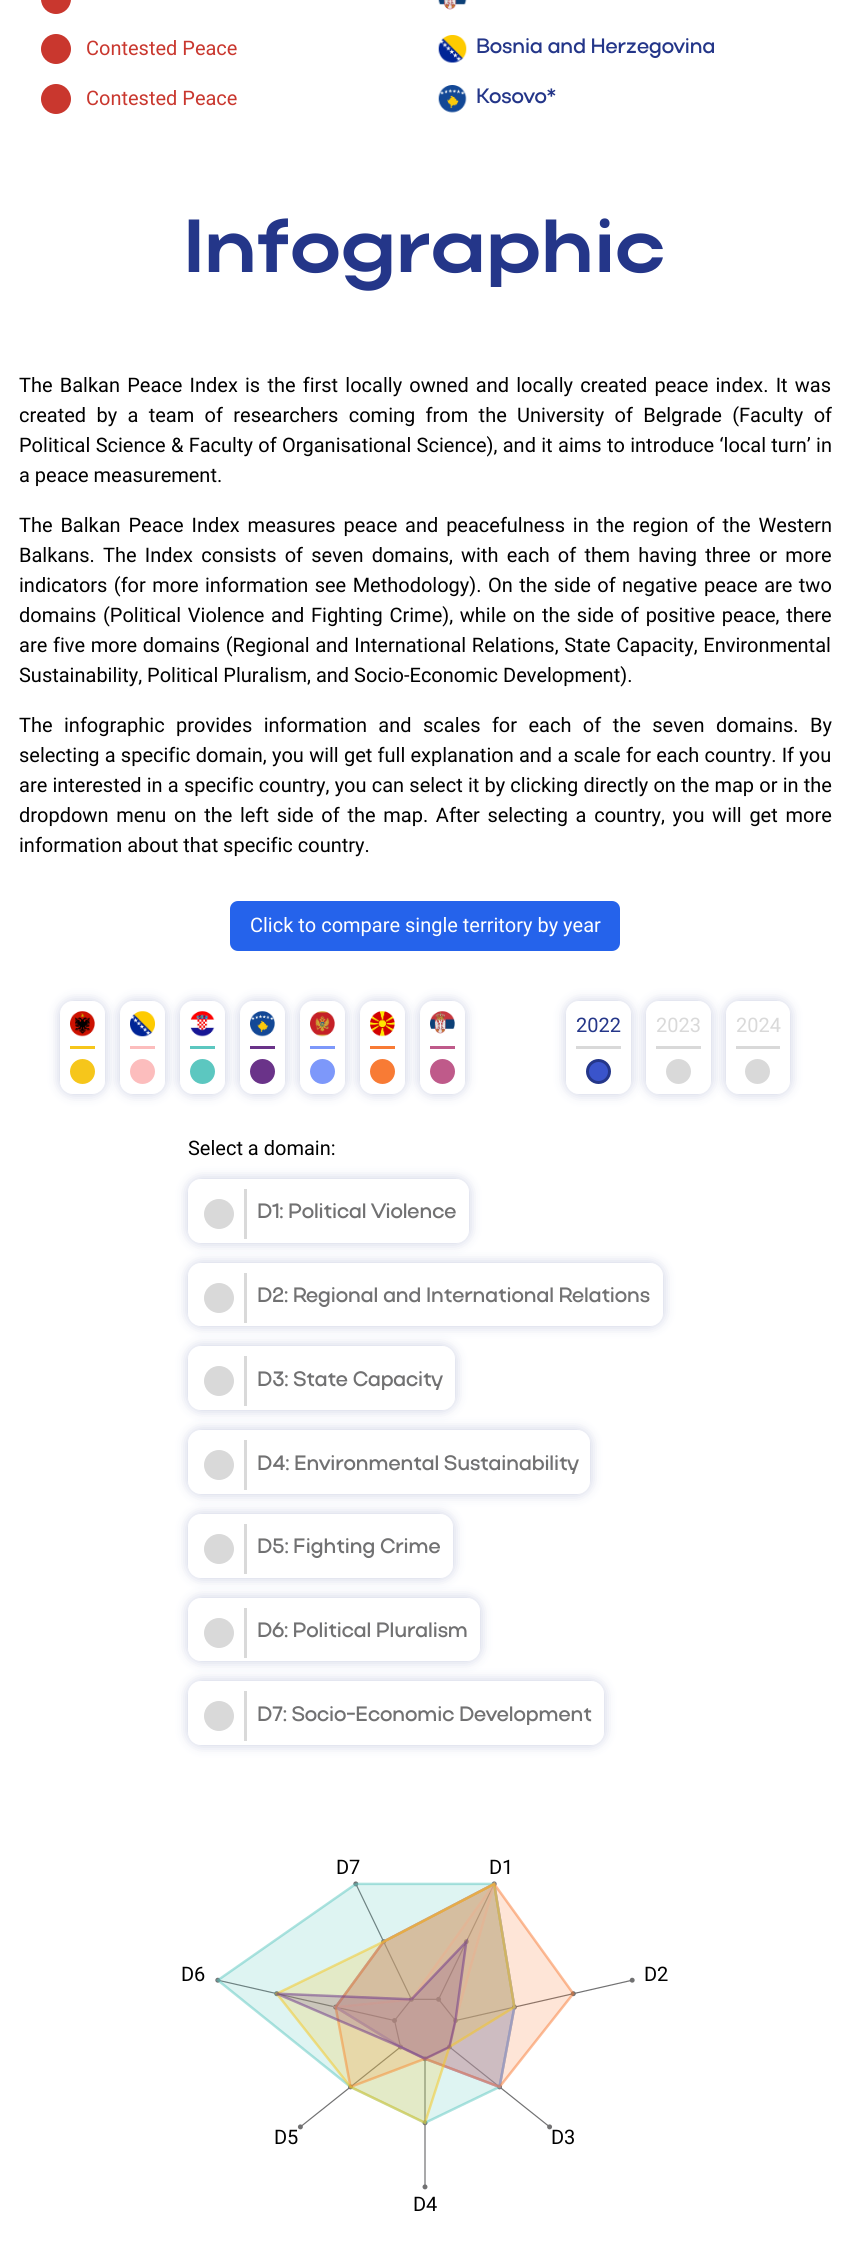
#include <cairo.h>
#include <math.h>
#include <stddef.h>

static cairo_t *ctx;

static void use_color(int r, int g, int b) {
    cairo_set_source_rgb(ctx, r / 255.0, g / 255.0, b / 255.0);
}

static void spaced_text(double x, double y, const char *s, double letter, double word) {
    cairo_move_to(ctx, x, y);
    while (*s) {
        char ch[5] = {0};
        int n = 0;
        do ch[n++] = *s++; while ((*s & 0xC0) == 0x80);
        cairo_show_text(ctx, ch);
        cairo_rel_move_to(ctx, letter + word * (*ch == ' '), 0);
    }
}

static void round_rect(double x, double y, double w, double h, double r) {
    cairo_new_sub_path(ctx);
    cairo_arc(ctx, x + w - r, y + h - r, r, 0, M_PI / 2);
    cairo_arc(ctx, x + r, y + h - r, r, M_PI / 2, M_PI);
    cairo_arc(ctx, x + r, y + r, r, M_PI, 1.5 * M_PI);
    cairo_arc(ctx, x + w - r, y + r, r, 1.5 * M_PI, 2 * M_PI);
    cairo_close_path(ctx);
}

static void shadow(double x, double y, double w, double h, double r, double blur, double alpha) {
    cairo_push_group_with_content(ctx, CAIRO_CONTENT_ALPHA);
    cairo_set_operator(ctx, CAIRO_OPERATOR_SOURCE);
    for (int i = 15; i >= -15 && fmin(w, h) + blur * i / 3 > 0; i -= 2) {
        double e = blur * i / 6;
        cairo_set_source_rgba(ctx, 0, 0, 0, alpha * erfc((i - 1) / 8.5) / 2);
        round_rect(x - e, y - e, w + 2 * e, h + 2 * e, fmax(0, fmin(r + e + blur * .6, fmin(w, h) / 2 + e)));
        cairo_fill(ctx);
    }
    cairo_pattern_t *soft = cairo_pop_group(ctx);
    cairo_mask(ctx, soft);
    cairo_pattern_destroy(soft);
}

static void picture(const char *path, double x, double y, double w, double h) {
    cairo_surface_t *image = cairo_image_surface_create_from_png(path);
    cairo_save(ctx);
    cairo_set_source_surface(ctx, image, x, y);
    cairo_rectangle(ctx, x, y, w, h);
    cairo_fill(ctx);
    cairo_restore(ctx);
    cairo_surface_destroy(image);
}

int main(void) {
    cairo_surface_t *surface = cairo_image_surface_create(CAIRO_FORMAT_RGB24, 850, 2251);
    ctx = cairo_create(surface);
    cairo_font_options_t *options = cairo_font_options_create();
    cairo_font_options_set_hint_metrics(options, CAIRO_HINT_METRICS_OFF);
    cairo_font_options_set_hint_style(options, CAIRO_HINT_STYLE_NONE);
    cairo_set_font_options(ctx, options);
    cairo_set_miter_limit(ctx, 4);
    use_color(255, 255, 255);
    cairo_paint(ctx);
    use_color(201, 55, 46);
    round_rect(41, -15, 30, 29, 15);
    cairo_fill(ctx);
    picture("img1.png", 438, 0, 29, 10);
    cairo_arc(ctx, 56, 49, 15, 0, 2 * M_PI);
    cairo_fill(ctx);
    cairo_select_font_face(ctx, "Roboto", CAIRO_FONT_SLANT_NORMAL, CAIRO_FONT_WEIGHT_NORMAL);
    cairo_set_font_size(ctx, 20);
    cairo_move_to(ctx, 86, 55);
    cairo_show_text(ctx, "Contested Peace");
    picture("img2.png", 438, 35, 29, 28);
    cairo_select_font_face(ctx, "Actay", CAIRO_FONT_SLANT_NORMAL, CAIRO_FONT_WEIGHT_BOLD);
    use_color(36, 54, 137);
    cairo_move_to(ctx, 476, 53);
    cairo_show_text(ctx, "Bosnia and Herzegovina");
    use_color(201, 55, 46);
    cairo_new_path(ctx);
    cairo_arc(ctx, 56, 99, 15, 0, 2 * M_PI);
    cairo_fill(ctx);
    cairo_select_font_face(ctx, "Roboto", CAIRO_FONT_SLANT_NORMAL, CAIRO_FONT_WEIGHT_NORMAL);
    cairo_move_to(ctx, 86, 105);
    cairo_show_text(ctx, "Contested Peace");
    picture("img3.png", 438, 85, 29, 28);
    cairo_select_font_face(ctx, "Actay", CAIRO_FONT_SLANT_NORMAL, CAIRO_FONT_WEIGHT_BOLD);
    use_color(36, 54, 137);
    cairo_move_to(ctx, 476, 103);
    cairo_show_text(ctx, "Kosovo*");
    cairo_select_font_face(ctx, "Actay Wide", CAIRO_FONT_SLANT_NORMAL, CAIRO_FONT_WEIGHT_BOLD);
    cairo_set_font_size(ctx, 75);
    cairo_move_to(ctx, 184, 272);
    cairo_show_text(ctx, "Infographic");
    cairo_select_font_face(ctx, "Roboto", CAIRO_FONT_SLANT_NORMAL, CAIRO_FONT_WEIGHT_NORMAL);
    cairo_set_font_size(ctx, 20);
    use_color(0, 0, 0);
    spaced_text(19, 392, "The Balkan Peace Index is the first locally owned and locally created peace index. It was", 0, 2.25);
    spaced_text(19, 422, "created by a team of researchers coming from the University of Belgrade (Faculty of", 0, 5.4);
    spaced_text(19, 452, "Political Science & Faculty of Organisational Science), and it aims to introduce ‘local turn’ in", 0, 0.4);
    cairo_move_to(ctx, 19, 482);
    cairo_show_text(ctx, "a peace measurement.");
    spaced_text(19, 532, "The Balkan Peace Index measures peace and peacefulness in the region of the Western", 0, 2.9);
    spaced_text(19, 562, "Balkans. The Index consists of seven domains, with each of them having three or more", 0, 3.25);
    spaced_text(19, 592, "indicators (for more information see Methodology). On the side of negative peace are two", 0, 1.5);
    spaced_text(19, 622, "domains (Political Violence and Fighting Crime), while on the side of positive peace, there", 0, 1.75);
    spaced_text(19, 652, "are five more domains (Regional and International Relations, State Capacity, Environmental", 0, 0.75);
    cairo_move_to(ctx, 19, 682);
    cairo_show_text(ctx, "Sustainability, Political Pluralism, and Socio-Economic Development).");
    spaced_text(19, 732, "The infographic provides information and scales for each of the seven domains. By", 0, 6.5);
    spaced_text(19, 762, "selecting a specific domain, you will get full explanation and a scale for each country. If you", 0, 0.3);
    spaced_text(19, 792, "are interested in a specific country, you can select it by clicking directly on the map or in the", 0, 0.25);
    spaced_text(19, 822, "dropdown menu on the left side of the map. After selecting a country, you will get more", 0, 2.75);
    cairo_move_to(ctx, 19, 852);
    cairo_show_text(ctx, "information about that specific country.");
    use_color(37, 99, 235);
    round_rect(230, 901, 390, 50, 8);
    cairo_fill(ctx);
    use_color(255, 255, 255);
    cairo_move_to(ctx, 250, 932);
    cairo_show_text(ctx, "Click to compare single territory by year");
    cairo_save(ctx);
    cairo_set_fill_rule(ctx, CAIRO_FILL_RULE_EVEN_ODD);
    cairo_new_path(ctx);
    cairo_move_to(ctx, 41, 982);
    cairo_line_to(ctx, 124, 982);
    cairo_line_to(ctx, 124, 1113);
    cairo_line_to(ctx, 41, 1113);
    cairo_close_path(ctx);
    cairo_move_to(ctx, 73, 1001);
    cairo_line_to(ctx, 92, 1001);
    cairo_curve_to(ctx, 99, 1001, 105, 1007, 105, 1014);
    cairo_line_to(ctx, 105, 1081);
    cairo_curve_to(ctx, 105, 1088, 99, 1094, 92, 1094);
    cairo_line_to(ctx, 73, 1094);
    cairo_curve_to(ctx, 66, 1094, 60, 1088, 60, 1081);
    cairo_line_to(ctx, 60, 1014);
    cairo_curve_to(ctx, 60, 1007, 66, 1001, 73, 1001);
    cairo_close_path(ctx);
    cairo_clip(ctx);
    use_color(36, 54, 137);
    shadow(60, 1001, 45, 93, 13, 6, 0.25);
    cairo_restore(ctx);
    picture("img4.png", 70, 1011, 25, 26);
    use_color(246, 198, 27);
    cairo_rectangle(ctx, 70, 1046, 25, 3);
    cairo_fill(ctx);
    cairo_arc(ctx, 82.5, 1071.5, 12.5, 0, 2 * M_PI);
    cairo_fill(ctx);
    cairo_save(ctx);
    cairo_set_fill_rule(ctx, CAIRO_FILL_RULE_EVEN_ODD);
    cairo_new_path(ctx);
    cairo_move_to(ctx, 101, 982);
    cairo_line_to(ctx, 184, 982);
    cairo_line_to(ctx, 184, 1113);
    cairo_line_to(ctx, 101, 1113);
    cairo_close_path(ctx);
    cairo_move_to(ctx, 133, 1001);
    cairo_line_to(ctx, 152, 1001);
    cairo_curve_to(ctx, 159, 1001, 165, 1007, 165, 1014);
    cairo_line_to(ctx, 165, 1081);
    cairo_curve_to(ctx, 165, 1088, 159, 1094, 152, 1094);
    cairo_line_to(ctx, 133, 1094);
    cairo_curve_to(ctx, 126, 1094, 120, 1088, 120, 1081);
    cairo_line_to(ctx, 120, 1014);
    cairo_curve_to(ctx, 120, 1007, 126, 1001, 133, 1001);
    cairo_close_path(ctx);
    cairo_clip(ctx);
    use_color(36, 54, 137);
    shadow(120, 1001, 45, 93, 13, 6, 0.25);
    cairo_restore(ctx);
    picture("img5.png", 130, 1011, 25, 26);
    use_color(252, 189, 189);
    cairo_rectangle(ctx, 130, 1046, 25, 3);
    cairo_fill(ctx);
    cairo_arc(ctx, 142.5, 1071.5, 12.5, 0, 2 * M_PI);
    cairo_fill(ctx);
    cairo_save(ctx);
    cairo_set_fill_rule(ctx, CAIRO_FILL_RULE_EVEN_ODD);
    cairo_new_path(ctx);
    cairo_move_to(ctx, 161, 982);
    cairo_line_to(ctx, 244, 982);
    cairo_line_to(ctx, 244, 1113);
    cairo_line_to(ctx, 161, 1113);
    cairo_close_path(ctx);
    cairo_move_to(ctx, 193, 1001);
    cairo_line_to(ctx, 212, 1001);
    cairo_curve_to(ctx, 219, 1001, 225, 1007, 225, 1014);
    cairo_line_to(ctx, 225, 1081);
    cairo_curve_to(ctx, 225, 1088, 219, 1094, 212, 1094);
    cairo_line_to(ctx, 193, 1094);
    cairo_curve_to(ctx, 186, 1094, 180, 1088, 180, 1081);
    cairo_line_to(ctx, 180, 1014);
    cairo_curve_to(ctx, 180, 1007, 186, 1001, 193, 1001);
    cairo_close_path(ctx);
    cairo_clip(ctx);
    use_color(36, 54, 137);
    shadow(180, 1001, 45, 93, 13, 6, 0.25);
    cairo_restore(ctx);
    picture("img6.png", 190, 1011, 25, 26);
    use_color(92, 199, 192);
    cairo_rectangle(ctx, 190, 1046, 25, 3);
    cairo_fill(ctx);
    cairo_arc(ctx, 202.5, 1071.5, 12.5, 0, 2 * M_PI);
    cairo_fill(ctx);
    cairo_save(ctx);
    cairo_set_fill_rule(ctx, CAIRO_FILL_RULE_EVEN_ODD);
    cairo_new_path(ctx);
    cairo_move_to(ctx, 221, 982);
    cairo_line_to(ctx, 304, 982);
    cairo_line_to(ctx, 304, 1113);
    cairo_line_to(ctx, 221, 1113);
    cairo_close_path(ctx);
    cairo_move_to(ctx, 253, 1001);
    cairo_line_to(ctx, 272, 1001);
    cairo_curve_to(ctx, 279, 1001, 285, 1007, 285, 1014);
    cairo_line_to(ctx, 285, 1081);
    cairo_curve_to(ctx, 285, 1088, 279, 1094, 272, 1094);
    cairo_line_to(ctx, 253, 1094);
    cairo_curve_to(ctx, 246, 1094, 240, 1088, 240, 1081);
    cairo_line_to(ctx, 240, 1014);
    cairo_curve_to(ctx, 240, 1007, 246, 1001, 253, 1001);
    cairo_close_path(ctx);
    cairo_clip(ctx);
    use_color(36, 54, 137);
    shadow(240, 1001, 45, 93, 13, 6, 0.25);
    cairo_restore(ctx);
    picture("img7.png", 250, 1011, 25, 26);
    use_color(106, 51, 137);
    cairo_rectangle(ctx, 250, 1046, 25, 3);
    cairo_fill(ctx);
    cairo_arc(ctx, 262.5, 1071.5, 12.5, 0, 2 * M_PI);
    cairo_fill(ctx);
    cairo_save(ctx);
    cairo_set_fill_rule(ctx, CAIRO_FILL_RULE_EVEN_ODD);
    cairo_new_path(ctx);
    cairo_move_to(ctx, 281, 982);
    cairo_line_to(ctx, 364, 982);
    cairo_line_to(ctx, 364, 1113);
    cairo_line_to(ctx, 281, 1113);
    cairo_close_path(ctx);
    cairo_move_to(ctx, 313, 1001);
    cairo_line_to(ctx, 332, 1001);
    cairo_curve_to(ctx, 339, 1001, 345, 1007, 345, 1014);
    cairo_line_to(ctx, 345, 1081);
    cairo_curve_to(ctx, 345, 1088, 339, 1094, 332, 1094);
    cairo_line_to(ctx, 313, 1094);
    cairo_curve_to(ctx, 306, 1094, 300, 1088, 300, 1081);
    cairo_line_to(ctx, 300, 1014);
    cairo_curve_to(ctx, 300, 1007, 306, 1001, 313, 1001);
    cairo_close_path(ctx);
    cairo_clip(ctx);
    use_color(36, 54, 137);
    shadow(300, 1001, 45, 93, 13, 6, 0.25);
    cairo_restore(ctx);
    picture("img8.png", 310, 1011, 25, 26);
    use_color(125, 152, 250);
    cairo_rectangle(ctx, 310, 1046, 25, 3);
    cairo_fill(ctx);
    cairo_arc(ctx, 322.5, 1071.5, 12.5, 0, 2 * M_PI);
    cairo_fill(ctx);
    cairo_save(ctx);
    cairo_set_fill_rule(ctx, CAIRO_FILL_RULE_EVEN_ODD);
    cairo_new_path(ctx);
    cairo_move_to(ctx, 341, 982);
    cairo_line_to(ctx, 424, 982);
    cairo_line_to(ctx, 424, 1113);
    cairo_line_to(ctx, 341, 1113);
    cairo_close_path(ctx);
    cairo_move_to(ctx, 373, 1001);
    cairo_line_to(ctx, 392, 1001);
    cairo_curve_to(ctx, 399, 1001, 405, 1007, 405, 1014);
    cairo_line_to(ctx, 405, 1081);
    cairo_curve_to(ctx, 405, 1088, 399, 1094, 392, 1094);
    cairo_line_to(ctx, 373, 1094);
    cairo_curve_to(ctx, 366, 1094, 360, 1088, 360, 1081);
    cairo_line_to(ctx, 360, 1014);
    cairo_curve_to(ctx, 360, 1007, 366, 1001, 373, 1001);
    cairo_close_path(ctx);
    cairo_clip(ctx);
    use_color(36, 54, 137);
    shadow(360, 1001, 45, 93, 13, 6, 0.25);
    cairo_restore(ctx);
    picture("img9.png", 370, 1011, 25, 26);
    use_color(248, 123, 53);
    cairo_rectangle(ctx, 370, 1046, 25, 3);
    cairo_fill(ctx);
    cairo_arc(ctx, 382.5, 1071.5, 12.5, 0, 2 * M_PI);
    cairo_fill(ctx);
    cairo_save(ctx);
    cairo_set_fill_rule(ctx, CAIRO_FILL_RULE_EVEN_ODD);
    cairo_new_path(ctx);
    cairo_move_to(ctx, 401, 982);
    cairo_line_to(ctx, 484, 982);
    cairo_line_to(ctx, 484, 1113);
    cairo_line_to(ctx, 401, 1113);
    cairo_close_path(ctx);
    cairo_move_to(ctx, 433, 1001);
    cairo_line_to(ctx, 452, 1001);
    cairo_curve_to(ctx, 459, 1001, 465, 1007, 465, 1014);
    cairo_line_to(ctx, 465, 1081);
    cairo_curve_to(ctx, 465, 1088, 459, 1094, 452, 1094);
    cairo_line_to(ctx, 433, 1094);
    cairo_curve_to(ctx, 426, 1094, 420, 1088, 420, 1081);
    cairo_line_to(ctx, 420, 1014);
    cairo_curve_to(ctx, 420, 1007, 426, 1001, 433, 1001);
    cairo_close_path(ctx);
    cairo_clip(ctx);
    use_color(36, 54, 137);
    shadow(420, 1001, 45, 93, 13, 6, 0.25);
    cairo_restore(ctx);
    picture("img10.png", 430, 1011, 25, 23);
    use_color(191, 90, 138);
    cairo_rectangle(ctx, 430, 1046, 25, 3);
    cairo_fill(ctx);
    cairo_arc(ctx, 442.5, 1071.5, 12.5, 0, 2 * M_PI);
    cairo_fill(ctx);
    cairo_save(ctx);
    cairo_set_fill_rule(ctx, CAIRO_FILL_RULE_EVEN_ODD);
    cairo_new_path(ctx);
    cairo_move_to(ctx, 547, 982);
    cairo_line_to(ctx, 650, 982);
    cairo_line_to(ctx, 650, 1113);
    cairo_line_to(ctx, 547, 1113);
    cairo_close_path(ctx);
    cairo_move_to(ctx, 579, 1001);
    cairo_line_to(ctx, 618, 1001);
    cairo_curve_to(ctx, 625, 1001, 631, 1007, 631, 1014);
    cairo_line_to(ctx, 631, 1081);
    cairo_curve_to(ctx, 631, 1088, 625, 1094, 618, 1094);
    cairo_line_to(ctx, 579, 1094);
    cairo_curve_to(ctx, 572, 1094, 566, 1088, 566, 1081);
    cairo_line_to(ctx, 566, 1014);
    cairo_curve_to(ctx, 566, 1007, 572, 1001, 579, 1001);
    cairo_close_path(ctx);
    cairo_clip(ctx);
    use_color(36, 54, 137);
    shadow(566, 1001, 65, 93, 13, 6, 0.25);
    cairo_restore(ctx);
    use_color(36, 54, 137);
    cairo_move_to(ctx, 576, 1032);
    cairo_show_text(ctx, "2022");
    use_color(217, 217, 217);
    cairo_rectangle(ctx, 576, 1046, 45, 3);
    cairo_fill(ctx);
    use_color(58, 84, 203);
    cairo_arc(ctx, 598.5, 1071.5, 11, 0, 2 * M_PI);
    cairo_fill_preserve(ctx);
    use_color(36, 54, 137);
    cairo_set_line_width(ctx, 3);
    cairo_stroke(ctx);
    cairo_save(ctx);
    cairo_set_fill_rule(ctx, CAIRO_FILL_RULE_EVEN_ODD);
    cairo_new_path(ctx);
    cairo_move_to(ctx, 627, 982);
    cairo_line_to(ctx, 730, 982);
    cairo_line_to(ctx, 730, 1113);
    cairo_line_to(ctx, 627, 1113);
    cairo_close_path(ctx);
    cairo_move_to(ctx, 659, 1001);
    cairo_line_to(ctx, 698, 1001);
    cairo_curve_to(ctx, 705, 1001, 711, 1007, 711, 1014);
    cairo_line_to(ctx, 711, 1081);
    cairo_curve_to(ctx, 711, 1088, 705, 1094, 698, 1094);
    cairo_line_to(ctx, 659, 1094);
    cairo_curve_to(ctx, 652, 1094, 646, 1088, 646, 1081);
    cairo_line_to(ctx, 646, 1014);
    cairo_curve_to(ctx, 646, 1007, 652, 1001, 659, 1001);
    cairo_close_path(ctx);
    cairo_clip(ctx);
    use_color(36, 54, 137);
    shadow(646, 1001, 65, 93, 13, 6, 0.25);
    cairo_restore(ctx);
    use_color(217, 217, 217);
    cairo_move_to(ctx, 656, 1032);
    cairo_show_text(ctx, "2023");
    cairo_rectangle(ctx, 656, 1046, 45, 3);
    cairo_fill(ctx);
    cairo_arc(ctx, 678.5, 1071.5, 11, 0, 2 * M_PI);
    cairo_fill_preserve(ctx);
    cairo_stroke(ctx);
    cairo_save(ctx);
    cairo_set_fill_rule(ctx, CAIRO_FILL_RULE_EVEN_ODD);
    cairo_new_path(ctx);
    cairo_move_to(ctx, 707, 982);
    cairo_line_to(ctx, 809, 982);
    cairo_line_to(ctx, 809, 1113);
    cairo_line_to(ctx, 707, 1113);
    cairo_close_path(ctx);
    cairo_move_to(ctx, 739, 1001);
    cairo_line_to(ctx, 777, 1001);
    cairo_curve_to(ctx, 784, 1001, 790, 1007, 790, 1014);
    cairo_line_to(ctx, 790, 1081);
    cairo_curve_to(ctx, 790, 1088, 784, 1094, 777, 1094);
    cairo_line_to(ctx, 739, 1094);
    cairo_curve_to(ctx, 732, 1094, 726, 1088, 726, 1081);
    cairo_line_to(ctx, 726, 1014);
    cairo_curve_to(ctx, 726, 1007, 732, 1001, 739, 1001);
    cairo_close_path(ctx);
    cairo_clip(ctx);
    use_color(36, 54, 137);
    shadow(726, 1001, 64, 93, 13, 6, 0.25);
    cairo_restore(ctx);
    cairo_move_to(ctx, 736, 1032);
    cairo_show_text(ctx, "2024");
    cairo_rectangle(ctx, 736, 1046, 44, 3);
    cairo_fill(ctx);
    cairo_arc(ctx, 757.5, 1071.5, 11, 0, 2 * M_PI);
    cairo_fill_preserve(ctx);
    cairo_stroke(ctx);
    use_color(0, 0, 0);
    cairo_move_to(ctx, 188, 1155);
    cairo_show_text(ctx, "Select a domain:");
    cairo_save(ctx);
    cairo_set_fill_rule(ctx, CAIRO_FILL_RULE_EVEN_ODD);
    cairo_new_path(ctx);
    cairo_move_to(ctx, 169, 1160);
    cairo_line_to(ctx, 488, 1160);
    cairo_line_to(ctx, 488, 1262);
    cairo_line_to(ctx, 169, 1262);
    cairo_close_path(ctx);
    cairo_move_to(ctx, 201, 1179);
    cairo_line_to(ctx, 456, 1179);
    cairo_curve_to(ctx, 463, 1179, 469, 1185, 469, 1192);
    cairo_line_to(ctx, 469, 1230);
    cairo_curve_to(ctx, 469, 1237, 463, 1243, 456, 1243);
    cairo_line_to(ctx, 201, 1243);
    cairo_curve_to(ctx, 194, 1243, 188, 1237, 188, 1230);
    cairo_line_to(ctx, 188, 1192);
    cairo_curve_to(ctx, 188, 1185, 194, 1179, 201, 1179);
    cairo_close_path(ctx);
    cairo_clip(ctx);
    use_color(36, 54, 137);
    shadow(188, 1179, 281, 64, 13, 6, 0.25);
    cairo_restore(ctx);
    use_color(217, 217, 217);
    cairo_rectangle(ctx, 244, 1189, 3, 50);
    cairo_fill(ctx);
    cairo_arc(ctx, 219, 1214, 15, 0, 2 * M_PI);
    cairo_fill(ctx);
    cairo_select_font_face(ctx, "Actay", CAIRO_FONT_SLANT_NORMAL, CAIRO_FONT_WEIGHT_BOLD);
    use_color(113, 113, 114);
    cairo_move_to(ctx, 257, 1218);
    cairo_show_text(ctx, "D1: Political Violence");
    cairo_save(ctx);
    cairo_set_fill_rule(ctx, CAIRO_FILL_RULE_EVEN_ODD);
    cairo_new_path(ctx);
    cairo_move_to(ctx, 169, 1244);
    cairo_line_to(ctx, 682, 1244);
    cairo_line_to(ctx, 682, 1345);
    cairo_line_to(ctx, 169, 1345);
    cairo_close_path(ctx);
    cairo_move_to(ctx, 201, 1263);
    cairo_line_to(ctx, 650, 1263);
    cairo_curve_to(ctx, 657, 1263, 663, 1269, 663, 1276);
    cairo_line_to(ctx, 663, 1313);
    cairo_curve_to(ctx, 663, 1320, 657, 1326, 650, 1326);
    cairo_line_to(ctx, 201, 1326);
    cairo_curve_to(ctx, 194, 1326, 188, 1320, 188, 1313);
    cairo_line_to(ctx, 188, 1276);
    cairo_curve_to(ctx, 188, 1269, 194, 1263, 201, 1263);
    cairo_close_path(ctx);
    cairo_clip(ctx);
    use_color(36, 54, 137);
    shadow(188, 1263, 475, 63, 13, 6, 0.25);
    cairo_restore(ctx);
    use_color(217, 217, 217);
    cairo_rectangle(ctx, 244, 1273, 3, 50);
    cairo_fill(ctx);
    cairo_arc(ctx, 219, 1298, 15, 0, 2 * M_PI);
    cairo_fill(ctx);
    use_color(113, 113, 114);
    cairo_move_to(ctx, 257, 1302);
    cairo_show_text(ctx, "D2: Regional and International Relations");
    cairo_save(ctx);
    cairo_set_fill_rule(ctx, CAIRO_FILL_RULE_EVEN_ODD);
    cairo_new_path(ctx);
    cairo_move_to(ctx, 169, 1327);
    cairo_line_to(ctx, 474, 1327);
    cairo_line_to(ctx, 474, 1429);
    cairo_line_to(ctx, 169, 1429);
    cairo_close_path(ctx);
    cairo_move_to(ctx, 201, 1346);
    cairo_line_to(ctx, 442, 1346);
    cairo_curve_to(ctx, 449, 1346, 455, 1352, 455, 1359);
    cairo_line_to(ctx, 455, 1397);
    cairo_curve_to(ctx, 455, 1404, 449, 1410, 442, 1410);
    cairo_line_to(ctx, 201, 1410);
    cairo_curve_to(ctx, 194, 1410, 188, 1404, 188, 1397);
    cairo_line_to(ctx, 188, 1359);
    cairo_curve_to(ctx, 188, 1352, 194, 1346, 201, 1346);
    cairo_close_path(ctx);
    cairo_clip(ctx);
    use_color(36, 54, 137);
    shadow(188, 1346, 267, 64, 13, 6, 0.25);
    cairo_restore(ctx);
    use_color(217, 217, 217);
    cairo_rectangle(ctx, 244, 1356, 3, 50);
    cairo_fill(ctx);
    cairo_arc(ctx, 219, 1381, 15, 0, 2 * M_PI);
    cairo_fill(ctx);
    use_color(113, 113, 114);
    cairo_move_to(ctx, 257, 1386);
    cairo_show_text(ctx, "D3: State Capacity");
    cairo_save(ctx);
    cairo_set_fill_rule(ctx, CAIRO_FILL_RULE_EVEN_ODD);
    cairo_new_path(ctx);
    cairo_move_to(ctx, 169, 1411);
    cairo_line_to(ctx, 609, 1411);
    cairo_line_to(ctx, 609, 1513);
    cairo_line_to(ctx, 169, 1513);
    cairo_close_path(ctx);
    cairo_move_to(ctx, 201, 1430);
    cairo_line_to(ctx, 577, 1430);
    cairo_curve_to(ctx, 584, 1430, 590, 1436, 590, 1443);
    cairo_line_to(ctx, 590, 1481);
    cairo_curve_to(ctx, 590, 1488, 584, 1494, 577, 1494);
    cairo_line_to(ctx, 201, 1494);
    cairo_curve_to(ctx, 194, 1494, 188, 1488, 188, 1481);
    cairo_line_to(ctx, 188, 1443);
    cairo_curve_to(ctx, 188, 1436, 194, 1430, 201, 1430);
    cairo_close_path(ctx);
    cairo_clip(ctx);
    use_color(36, 54, 137);
    shadow(188, 1430, 402, 64, 13, 6, 0.25);
    cairo_restore(ctx);
    use_color(217, 217, 217);
    cairo_rectangle(ctx, 244, 1440, 3, 50);
    cairo_fill(ctx);
    cairo_arc(ctx, 219, 1465, 15, 0, 2 * M_PI);
    cairo_fill(ctx);
    use_color(113, 113, 114);
    cairo_move_to(ctx, 257, 1470);
    cairo_show_text(ctx, "D4: Environmental Sustainability");
    cairo_save(ctx);
    cairo_set_fill_rule(ctx, CAIRO_FILL_RULE_EVEN_ODD);
    cairo_new_path(ctx);
    cairo_move_to(ctx, 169, 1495);
    cairo_line_to(ctx, 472, 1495);
    cairo_line_to(ctx, 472, 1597);
    cairo_line_to(ctx, 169, 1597);
    cairo_close_path(ctx);
    cairo_move_to(ctx, 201, 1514);
    cairo_line_to(ctx, 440, 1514);
    cairo_curve_to(ctx, 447, 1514, 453, 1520, 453, 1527);
    cairo_line_to(ctx, 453, 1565);
    cairo_curve_to(ctx, 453, 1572, 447, 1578, 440, 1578);
    cairo_line_to(ctx, 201, 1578);
    cairo_curve_to(ctx, 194, 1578, 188, 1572, 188, 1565);
    cairo_line_to(ctx, 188, 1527);
    cairo_curve_to(ctx, 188, 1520, 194, 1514, 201, 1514);
    cairo_close_path(ctx);
    cairo_clip(ctx);
    use_color(36, 54, 137);
    shadow(188, 1514, 265, 64, 13, 6, 0.25);
    cairo_restore(ctx);
    use_color(217, 217, 217);
    cairo_rectangle(ctx, 244, 1524, 3, 50);
    cairo_fill(ctx);
    cairo_arc(ctx, 219, 1549, 15, 0, 2 * M_PI);
    cairo_fill(ctx);
    use_color(113, 113, 114);
    cairo_move_to(ctx, 257, 1553);
    cairo_show_text(ctx, "D5: Fighting Crime");
    cairo_save(ctx);
    cairo_set_fill_rule(ctx, CAIRO_FILL_RULE_EVEN_ODD);
    cairo_new_path(ctx);
    cairo_move_to(ctx, 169, 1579);
    cairo_line_to(ctx, 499, 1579);
    cairo_line_to(ctx, 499, 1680);
    cairo_line_to(ctx, 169, 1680);
    cairo_close_path(ctx);
    cairo_move_to(ctx, 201, 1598);
    cairo_line_to(ctx, 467, 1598);
    cairo_curve_to(ctx, 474, 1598, 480, 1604, 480, 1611);
    cairo_line_to(ctx, 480, 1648);
    cairo_curve_to(ctx, 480, 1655, 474, 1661, 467, 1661);
    cairo_line_to(ctx, 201, 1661);
    cairo_curve_to(ctx, 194, 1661, 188, 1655, 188, 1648);
    cairo_line_to(ctx, 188, 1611);
    cairo_curve_to(ctx, 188, 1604, 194, 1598, 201, 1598);
    cairo_close_path(ctx);
    cairo_clip(ctx);
    use_color(36, 54, 137);
    shadow(188, 1598, 292, 63, 13, 6, 0.25);
    cairo_restore(ctx);
    use_color(217, 217, 217);
    cairo_rectangle(ctx, 244, 1608, 3, 50);
    cairo_fill(ctx);
    cairo_arc(ctx, 219, 1633, 15, 0, 2 * M_PI);
    cairo_fill(ctx);
    use_color(113, 113, 114);
    cairo_move_to(ctx, 257, 1637);
    cairo_show_text(ctx, "D6: Political Pluralism");
    cairo_save(ctx);
    cairo_set_fill_rule(ctx, CAIRO_FILL_RULE_EVEN_ODD);
    cairo_new_path(ctx);
    cairo_move_to(ctx, 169, 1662);
    cairo_line_to(ctx, 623, 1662);
    cairo_line_to(ctx, 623, 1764);
    cairo_line_to(ctx, 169, 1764);
    cairo_close_path(ctx);
    cairo_move_to(ctx, 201, 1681);
    cairo_line_to(ctx, 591, 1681);
    cairo_curve_to(ctx, 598, 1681, 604, 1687, 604, 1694);
    cairo_line_to(ctx, 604, 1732);
    cairo_curve_to(ctx, 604, 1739, 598, 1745, 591, 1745);
    cairo_line_to(ctx, 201, 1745);
    cairo_curve_to(ctx, 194, 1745, 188, 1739, 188, 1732);
    cairo_line_to(ctx, 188, 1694);
    cairo_curve_to(ctx, 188, 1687, 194, 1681, 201, 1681);
    cairo_close_path(ctx);
    cairo_clip(ctx);
    use_color(36, 54, 137);
    shadow(188, 1681, 416, 64, 13, 6, 0.25);
    cairo_restore(ctx);
    use_color(217, 217, 217);
    cairo_rectangle(ctx, 244, 1691, 3, 50);
    cairo_fill(ctx);
    cairo_arc(ctx, 219, 1716, 15, 0, 2 * M_PI);
    cairo_fill(ctx);
    use_color(113, 113, 114);
    cairo_move_to(ctx, 257, 1721);
    cairo_show_text(ctx, "D7: Socio-Economic Development");
    picture("img11.png", 215, 1881, 420, 309);
    cairo_select_font_face(ctx, "Roboto", CAIRO_FONT_SLANT_NORMAL, CAIRO_FONT_WEIGHT_NORMAL);
    use_color(0, 0, 0);
    cairo_move_to(ctx, 336, 1874);
    cairo_show_text(ctx, "D7");
    cairo_move_to(ctx, 489, 1874);
    cairo_show_text(ctx, "D1");
    cairo_move_to(ctx, 181, 1981);
    cairo_show_text(ctx, "D6");
    cairo_move_to(ctx, 644, 1981);
    cairo_show_text(ctx, "D2");
    cairo_move_to(ctx, 274, 2144);
    cairo_show_text(ctx, "D5");
    cairo_move_to(ctx, 551, 2144);
    cairo_show_text(ctx, "D3");
    cairo_move_to(ctx, 413, 2211);
    cairo_show_text(ctx, "D4");
    cairo_surface_write_to_png(surface, "result.png");
    cairo_font_options_destroy(options);
    cairo_destroy(ctx);
    cairo_surface_destroy(surface);
    return 0;
}
